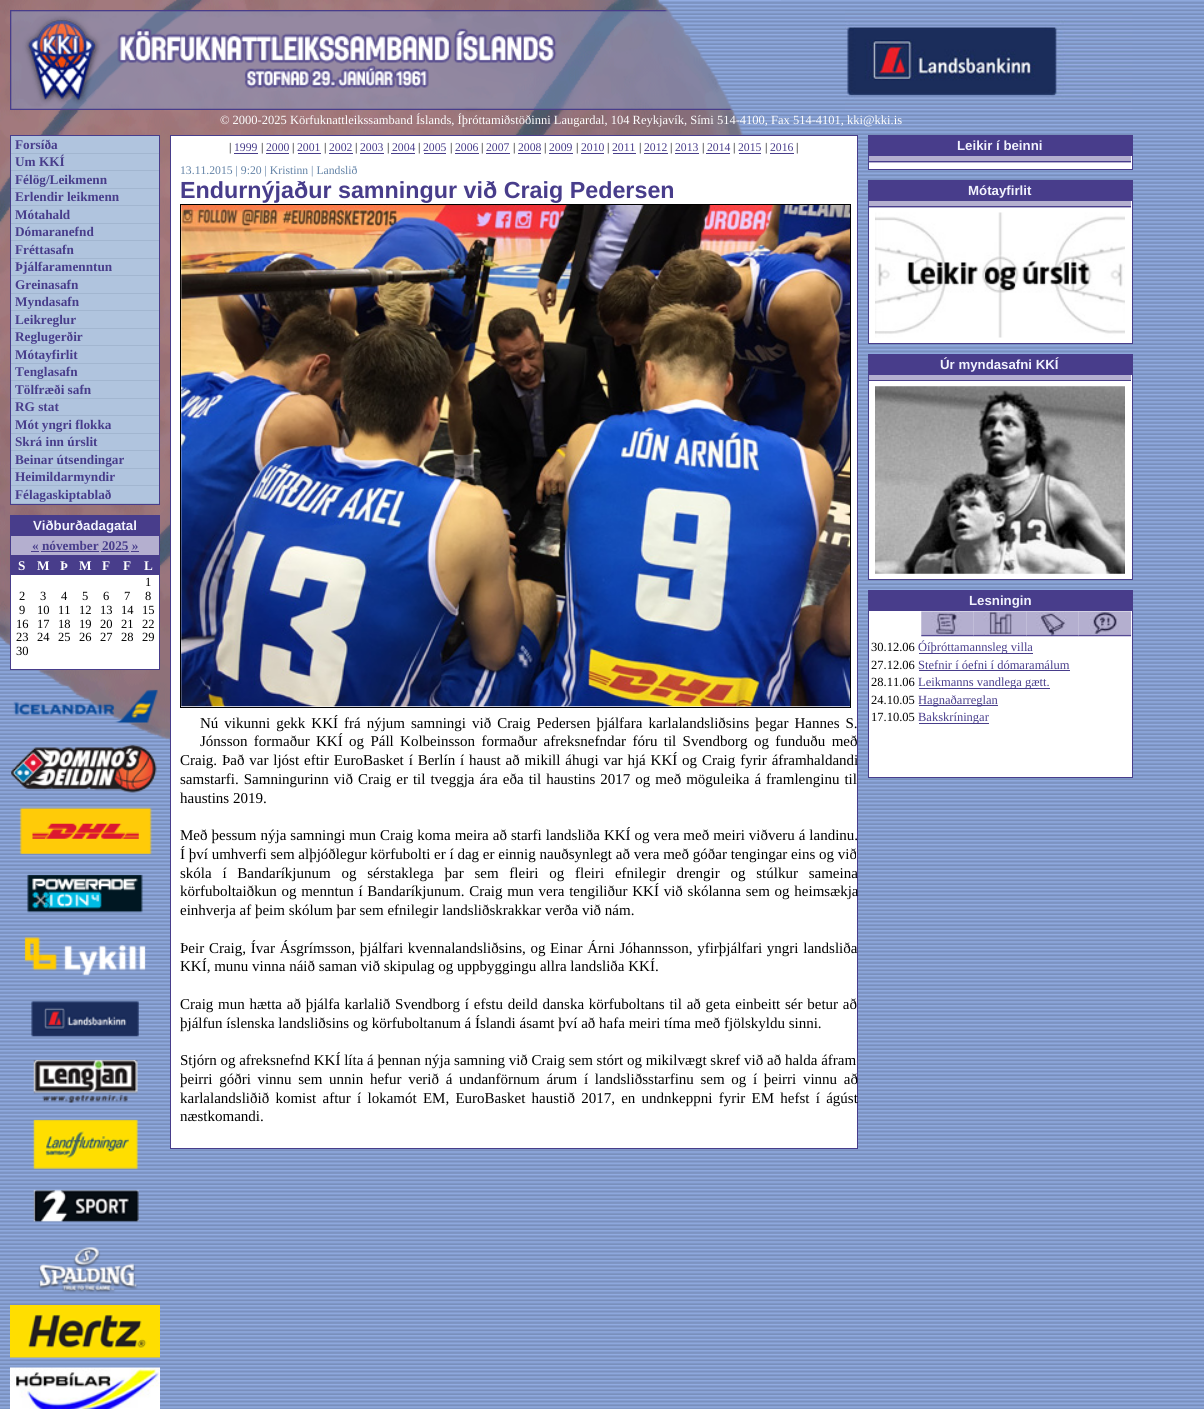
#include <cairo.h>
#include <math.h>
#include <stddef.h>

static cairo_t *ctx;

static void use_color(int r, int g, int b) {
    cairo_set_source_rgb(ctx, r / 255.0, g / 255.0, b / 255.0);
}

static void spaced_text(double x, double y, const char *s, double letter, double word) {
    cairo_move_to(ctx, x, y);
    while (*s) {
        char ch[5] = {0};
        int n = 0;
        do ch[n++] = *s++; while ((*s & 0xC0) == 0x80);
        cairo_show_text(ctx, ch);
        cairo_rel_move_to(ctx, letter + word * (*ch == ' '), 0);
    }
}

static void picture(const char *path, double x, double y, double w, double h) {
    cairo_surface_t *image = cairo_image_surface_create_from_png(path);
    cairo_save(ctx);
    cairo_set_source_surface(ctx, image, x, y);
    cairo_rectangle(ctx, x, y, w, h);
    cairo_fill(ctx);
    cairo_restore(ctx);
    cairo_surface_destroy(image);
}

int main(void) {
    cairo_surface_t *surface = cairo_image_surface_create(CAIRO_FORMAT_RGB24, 1204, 1409);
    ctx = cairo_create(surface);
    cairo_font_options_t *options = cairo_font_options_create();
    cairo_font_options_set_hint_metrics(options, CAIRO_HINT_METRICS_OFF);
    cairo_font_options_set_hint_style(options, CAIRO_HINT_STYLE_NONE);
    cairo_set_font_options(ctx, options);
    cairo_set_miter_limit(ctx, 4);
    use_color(255, 255, 255);
    cairo_paint(ctx);
    picture("img1.png", 0, 0, 1204, 1409);
    picture("img2.png", 0, 0, 781, 769);
    picture("img3.png", 733, 10, 400, 100);
    picture("img4.png", 10, 10, 723, 100);
    picture("img5.png", 845, 10, 288, 100);
    cairo_select_font_face(ctx, "Liberation Serif", CAIRO_FONT_SLANT_NORMAL, CAIRO_FONT_WEIGHT_NORMAL);
    cairo_set_font_size(ctx, 12.5);
    use_color(255, 255, 255);
    cairo_move_to(ctx, 220, 124);
    cairo_show_text(ctx, "© 2000-2025 Körfuknattleikssamband Íslands, Íþróttamiðstöðinni Laugardal, 104 Reykjavík, Sími 514-4100, Fax 514-4101, kki@kki.is");
    cairo_rectangle(ctx, 10.5, 135.5, 149, 369);
    use_color(72, 61, 139);
    cairo_set_line_width(ctx, 1);
    cairo_stroke(ctx);
    use_color(176, 196, 222);
    cairo_rectangle(ctx, 11, 136, 148, 17);
    cairo_fill(ctx);
    use_color(162, 182, 208);
    cairo_rectangle(ctx, 11, 153, 148, 1);
    cairo_fill(ctx);
    cairo_select_font_face(ctx, "Liberation Serif", CAIRO_FONT_SLANT_NORMAL, CAIRO_FONT_WEIGHT_BOLD);
    cairo_set_font_size(ctx, 13.25);
    use_color(72, 61, 139);
    cairo_move_to(ctx, 15, 149);
    cairo_show_text(ctx, "Forsíða");
    use_color(176, 196, 222);
    cairo_rectangle(ctx, 11, 154, 148, 16);
    cairo_fill(ctx);
    use_color(162, 182, 208);
    cairo_rectangle(ctx, 11, 170, 148, 1);
    cairo_fill(ctx);
    use_color(72, 61, 139);
    cairo_move_to(ctx, 15, 166);
    cairo_show_text(ctx, "Um KKÍ");
    use_color(176, 196, 222);
    cairo_rectangle(ctx, 11, 171, 148, 17);
    cairo_fill(ctx);
    use_color(162, 182, 208);
    cairo_rectangle(ctx, 11, 188, 148, 1);
    cairo_fill(ctx);
    use_color(72, 61, 139);
    cairo_move_to(ctx, 15, 184);
    cairo_show_text(ctx, "Félög/Leikmenn");
    use_color(176, 196, 222);
    cairo_rectangle(ctx, 11, 189, 148, 16);
    cairo_fill(ctx);
    use_color(162, 182, 208);
    cairo_rectangle(ctx, 11, 205, 148, 1);
    cairo_fill(ctx);
    use_color(72, 61, 139);
    cairo_move_to(ctx, 15, 201);
    cairo_show_text(ctx, "Erlendir leikmenn");
    use_color(176, 196, 222);
    cairo_rectangle(ctx, 11, 206, 148, 17);
    cairo_fill(ctx);
    use_color(162, 182, 208);
    cairo_rectangle(ctx, 11, 223, 148, 1);
    cairo_fill(ctx);
    use_color(72, 61, 139);
    cairo_move_to(ctx, 15, 219);
    cairo_show_text(ctx, "Mótahald");
    use_color(176, 196, 222);
    cairo_rectangle(ctx, 11, 224, 148, 16);
    cairo_fill(ctx);
    use_color(162, 182, 208);
    cairo_rectangle(ctx, 11, 240, 148, 1);
    cairo_fill(ctx);
    use_color(72, 61, 139);
    cairo_move_to(ctx, 15, 236);
    cairo_show_text(ctx, "Dómaranefnd");
    use_color(176, 196, 222);
    cairo_rectangle(ctx, 11, 241, 148, 17);
    cairo_fill(ctx);
    use_color(162, 182, 208);
    cairo_rectangle(ctx, 11, 258, 148, 1);
    cairo_fill(ctx);
    use_color(72, 61, 139);
    cairo_move_to(ctx, 15, 254);
    cairo_show_text(ctx, "Fréttasafn");
    use_color(176, 196, 222);
    cairo_rectangle(ctx, 11, 259, 148, 16);
    cairo_fill(ctx);
    use_color(162, 182, 208);
    cairo_rectangle(ctx, 11, 275, 148, 1);
    cairo_fill(ctx);
    use_color(72, 61, 139);
    cairo_move_to(ctx, 15, 271);
    cairo_show_text(ctx, "Þjálfaramenntun");
    use_color(176, 196, 222);
    cairo_rectangle(ctx, 11, 276, 148, 17);
    cairo_fill(ctx);
    use_color(162, 182, 208);
    cairo_rectangle(ctx, 11, 293, 148, 1);
    cairo_fill(ctx);
    use_color(72, 61, 139);
    cairo_move_to(ctx, 15, 289);
    cairo_show_text(ctx, "Greinasafn");
    use_color(176, 196, 222);
    cairo_rectangle(ctx, 11, 294, 148, 16);
    cairo_fill(ctx);
    use_color(162, 182, 208);
    cairo_rectangle(ctx, 11, 310, 148, 1);
    cairo_fill(ctx);
    use_color(72, 61, 139);
    cairo_move_to(ctx, 15, 306);
    cairo_show_text(ctx, "Myndasafn");
    use_color(176, 196, 222);
    cairo_rectangle(ctx, 11, 311, 148, 17);
    cairo_fill(ctx);
    use_color(162, 182, 208);
    cairo_rectangle(ctx, 11, 328, 148, 1);
    cairo_fill(ctx);
    use_color(72, 61, 139);
    cairo_move_to(ctx, 15, 324);
    cairo_show_text(ctx, "Leikreglur");
    use_color(176, 196, 222);
    cairo_rectangle(ctx, 11, 329, 148, 16);
    cairo_fill(ctx);
    use_color(162, 182, 208);
    cairo_rectangle(ctx, 11, 345, 148, 1);
    cairo_fill(ctx);
    use_color(72, 61, 139);
    cairo_move_to(ctx, 15, 341);
    cairo_show_text(ctx, "Reglugerðir");
    use_color(176, 196, 222);
    cairo_rectangle(ctx, 11, 346, 148, 17);
    cairo_fill(ctx);
    use_color(162, 182, 208);
    cairo_rectangle(ctx, 11, 363, 148, 1);
    cairo_fill(ctx);
    use_color(72, 61, 139);
    cairo_move_to(ctx, 15, 359);
    cairo_show_text(ctx, "Mótayfirlit");
    use_color(176, 196, 222);
    cairo_rectangle(ctx, 11, 364, 148, 16);
    cairo_fill(ctx);
    use_color(162, 182, 208);
    cairo_rectangle(ctx, 11, 380, 148, 1);
    cairo_fill(ctx);
    use_color(72, 61, 139);
    cairo_move_to(ctx, 15, 376);
    cairo_show_text(ctx, "Tenglasafn");
    use_color(176, 196, 222);
    cairo_rectangle(ctx, 11, 381, 148, 17);
    cairo_fill(ctx);
    use_color(162, 182, 208);
    cairo_rectangle(ctx, 11, 398, 148, 1);
    cairo_fill(ctx);
    use_color(72, 61, 139);
    cairo_move_to(ctx, 15, 394);
    cairo_show_text(ctx, "Tölfræði safn");
    use_color(176, 196, 222);
    cairo_rectangle(ctx, 11, 399, 148, 16);
    cairo_fill(ctx);
    use_color(162, 182, 208);
    cairo_rectangle(ctx, 11, 415, 148, 1);
    cairo_fill(ctx);
    use_color(72, 61, 139);
    cairo_move_to(ctx, 15, 411);
    cairo_show_text(ctx, "RG stat");
    use_color(176, 196, 222);
    cairo_rectangle(ctx, 11, 416, 148, 17);
    cairo_fill(ctx);
    use_color(162, 182, 208);
    cairo_rectangle(ctx, 11, 433, 148, 1);
    cairo_fill(ctx);
    use_color(72, 61, 139);
    cairo_move_to(ctx, 15, 429);
    cairo_show_text(ctx, "Mót yngri flokka");
    use_color(176, 196, 222);
    cairo_rectangle(ctx, 11, 434, 148, 16);
    cairo_fill(ctx);
    use_color(162, 182, 208);
    cairo_rectangle(ctx, 11, 450, 148, 1);
    cairo_fill(ctx);
    use_color(72, 61, 139);
    cairo_move_to(ctx, 15, 446);
    cairo_show_text(ctx, "Skrá inn úrslit");
    use_color(176, 196, 222);
    cairo_rectangle(ctx, 11, 451, 148, 17);
    cairo_fill(ctx);
    use_color(162, 182, 208);
    cairo_rectangle(ctx, 11, 468, 148, 1);
    cairo_fill(ctx);
    use_color(72, 61, 139);
    cairo_move_to(ctx, 15, 464);
    cairo_show_text(ctx, "Beinar útsendingar");
    use_color(176, 196, 222);
    cairo_rectangle(ctx, 11, 469, 148, 16);
    cairo_fill(ctx);
    use_color(162, 182, 208);
    cairo_rectangle(ctx, 11, 485, 148, 1);
    cairo_fill(ctx);
    use_color(72, 61, 139);
    cairo_move_to(ctx, 15, 481);
    cairo_show_text(ctx, "Heimildarmyndir");
    use_color(176, 196, 222);
    cairo_rectangle(ctx, 11, 486, 148, 17);
    cairo_fill(ctx);
    use_color(162, 182, 208);
    cairo_rectangle(ctx, 11, 503, 148, 1);
    cairo_fill(ctx);
    use_color(72, 61, 139);
    cairo_move_to(ctx, 15, 499);
    cairo_show_text(ctx, "Félagaskiptablað");
    cairo_rectangle(ctx, 10, 515, 150, 20);
    cairo_fill(ctx);
    cairo_select_font_face(ctx, "Liberation Sans", CAIRO_FONT_SLANT_NORMAL, CAIRO_FONT_WEIGHT_BOLD);
    use_color(242, 243, 254);
    cairo_move_to(ctx, 33, 530);
    cairo_show_text(ctx, "Viðburðadagatal");
    use_color(255, 255, 255);
    cairo_rectangle(ctx, 11, 575, 148, 94);
    cairo_fill(ctx);
    cairo_rectangle(ctx, 10.5, 535.5, 149, 134);
    use_color(72, 61, 139);
    cairo_stroke(ctx);
    use_color(180, 175, 207);
    cairo_rectangle(ctx, 11, 536, 148, 19);
    cairo_fill(ctx);
    use_color(72, 61, 139);
    cairo_rectangle(ctx, 11, 555, 148, 1);
    cairo_fill(ctx);
    cairo_select_font_face(ctx, "Liberation Serif", CAIRO_FONT_SLANT_NORMAL, CAIRO_FONT_WEIGHT_BOLD);
    cairo_move_to(ctx, 32, 550);
    cairo_show_text(ctx, "« nóvember 2025 »");
    cairo_rectangle(ctx, 31, 551, 8, 1);
    cairo_fill(ctx);
    cairo_rectangle(ctx, 41, 551, 58, 1);
    cairo_fill(ctx);
    cairo_rectangle(ctx, 101, 551, 28, 1);
    cairo_fill(ctx);
    cairo_rectangle(ctx, 131, 551, 8, 1);
    cairo_fill(ctx);
    cairo_rectangle(ctx, 11, 556, 148, 19);
    cairo_fill(ctx);
    use_color(255, 255, 255);
    cairo_move_to(ctx, 18, 570);
    cairo_show_text(ctx, "S");
    cairo_move_to(ctx, 37, 570);
    cairo_show_text(ctx, "M");
    cairo_move_to(ctx, 60, 570);
    cairo_show_text(ctx, "Þ");
    cairo_move_to(ctx, 79, 570);
    cairo_show_text(ctx, "M");
    cairo_move_to(ctx, 102, 570);
    cairo_show_text(ctx, "F");
    cairo_move_to(ctx, 123, 570);
    cairo_show_text(ctx, "F");
    cairo_move_to(ctx, 144, 570);
    cairo_show_text(ctx, "L");
    cairo_select_font_face(ctx, "Liberation Serif", CAIRO_FONT_SLANT_NORMAL, CAIRO_FONT_WEIGHT_NORMAL);
    cairo_set_font_size(ctx, 12.5);
    use_color(0, 0, 0);
    cairo_move_to(ctx, 145, 586);
    cairo_show_text(ctx, "1");
    cairo_move_to(ctx, 19, 600);
    cairo_show_text(ctx, "2");
    cairo_move_to(ctx, 40, 600);
    cairo_show_text(ctx, "3");
    cairo_move_to(ctx, 61, 600);
    cairo_show_text(ctx, "4");
    cairo_move_to(ctx, 82, 600);
    cairo_show_text(ctx, "5");
    cairo_move_to(ctx, 103, 600);
    cairo_show_text(ctx, "6");
    cairo_move_to(ctx, 124, 600);
    cairo_show_text(ctx, "7");
    cairo_move_to(ctx, 145, 600);
    cairo_show_text(ctx, "8");
    cairo_move_to(ctx, 19, 614);
    cairo_show_text(ctx, "9");
    cairo_move_to(ctx, 37, 614);
    cairo_show_text(ctx, "10");
    cairo_move_to(ctx, 58, 614);
    cairo_show_text(ctx, "11");
    cairo_move_to(ctx, 79, 614);
    cairo_show_text(ctx, "12");
    cairo_move_to(ctx, 100, 614);
    cairo_show_text(ctx, "13");
    cairo_move_to(ctx, 121, 614);
    cairo_show_text(ctx, "14");
    cairo_move_to(ctx, 142, 614);
    cairo_show_text(ctx, "15");
    cairo_move_to(ctx, 16, 628);
    cairo_show_text(ctx, "16");
    cairo_move_to(ctx, 37, 628);
    cairo_show_text(ctx, "17");
    cairo_move_to(ctx, 58, 628);
    cairo_show_text(ctx, "18");
    cairo_move_to(ctx, 79, 628);
    cairo_show_text(ctx, "19");
    cairo_move_to(ctx, 100, 628);
    cairo_show_text(ctx, "20");
    cairo_move_to(ctx, 121, 628);
    cairo_show_text(ctx, "21");
    cairo_move_to(ctx, 142, 628);
    cairo_show_text(ctx, "22");
    cairo_move_to(ctx, 16, 641);
    cairo_show_text(ctx, "23");
    cairo_move_to(ctx, 37, 641);
    cairo_show_text(ctx, "24");
    cairo_move_to(ctx, 58, 641);
    cairo_show_text(ctx, "25");
    cairo_move_to(ctx, 79, 641);
    cairo_show_text(ctx, "26");
    cairo_move_to(ctx, 100, 641);
    cairo_show_text(ctx, "27");
    cairo_move_to(ctx, 121, 641);
    cairo_show_text(ctx, "28");
    cairo_move_to(ctx, 142, 641);
    cairo_show_text(ctx, "29");
    cairo_move_to(ctx, 16, 655);
    cairo_show_text(ctx, "30");
    picture("img6.png", 13, 689, 145, 34);
    picture("img7.png", 11, 744, 146, 49);
    picture("img8.png", 19, 807, 133, 47);
    picture("img9.png", 27, 874, 116, 39);
    picture("img10.png", 24, 937, 122, 39);
    picture("img11.png", 31, 1001, 108, 36);
    picture("img12.png", 33, 1059, 105, 44);
    picture("img13.png", 33, 1119, 105, 50);
    picture("img14.png", 33, 1189, 106, 33);
    picture("img15.png", 38, 1247, 100, 46);
    picture("img16.png", 10, 1305, 150, 53);
    picture("img17.png", 10, 1367, 150, 42);
    use_color(255, 255, 255);
    cairo_rectangle(ctx, 170.5, 135.5, 687, 1013);
    cairo_fill_preserve(ctx);
    use_color(72, 61, 139);
    cairo_stroke(ctx);
    cairo_set_font_size(ctx, 11.7);
    use_color(0, 0, 0);
    cairo_move_to(ctx, 229, 151);
    cairo_show_text(ctx, "|");
    use_color(72, 61, 139);
    cairo_move_to(ctx, 234, 151);
    cairo_show_text(ctx, "1999");
    cairo_rectangle(ctx, 234, 153, 24, 1);
    cairo_fill(ctx);
    use_color(0, 0, 0);
    cairo_move_to(ctx, 261, 151);
    cairo_show_text(ctx, "|");
    use_color(72, 61, 139);
    cairo_move_to(ctx, 266, 151);
    cairo_show_text(ctx, "2000");
    cairo_rectangle(ctx, 266, 153, 23, 1);
    cairo_fill(ctx);
    use_color(0, 0, 0);
    cairo_move_to(ctx, 292, 151);
    cairo_show_text(ctx, "|");
    use_color(72, 61, 139);
    cairo_move_to(ctx, 297, 151);
    cairo_show_text(ctx, "2001");
    cairo_rectangle(ctx, 298, 153, 23, 1);
    cairo_fill(ctx);
    use_color(0, 0, 0);
    cairo_move_to(ctx, 324, 151);
    cairo_show_text(ctx, "|");
    use_color(72, 61, 139);
    cairo_move_to(ctx, 329, 151);
    cairo_show_text(ctx, "2002");
    cairo_rectangle(ctx, 329, 153, 24, 1);
    cairo_fill(ctx);
    use_color(0, 0, 0);
    cairo_move_to(ctx, 355, 151);
    cairo_show_text(ctx, "|");
    use_color(72, 61, 139);
    cairo_move_to(ctx, 360, 151);
    cairo_show_text(ctx, "2003");
    cairo_rectangle(ctx, 360, 153, 24, 1);
    cairo_fill(ctx);
    use_color(0, 0, 0);
    cairo_move_to(ctx, 387, 151);
    cairo_show_text(ctx, "|");
    use_color(72, 61, 139);
    cairo_move_to(ctx, 392, 151);
    cairo_show_text(ctx, "2004");
    cairo_rectangle(ctx, 391, 153, 24, 1);
    cairo_fill(ctx);
    use_color(0, 0, 0);
    cairo_move_to(ctx, 418, 151);
    cairo_show_text(ctx, "|");
    use_color(72, 61, 139);
    cairo_move_to(ctx, 423, 151);
    cairo_show_text(ctx, "2005");
    cairo_rectangle(ctx, 424, 153, 22, 1);
    cairo_fill(ctx);
    use_color(0, 0, 0);
    cairo_move_to(ctx, 450, 151);
    cairo_show_text(ctx, "|");
    use_color(72, 61, 139);
    cairo_move_to(ctx, 455, 151);
    cairo_show_text(ctx, "2006");
    cairo_rectangle(ctx, 455, 153, 24, 1);
    cairo_fill(ctx);
    use_color(0, 0, 0);
    cairo_move_to(ctx, 481, 151);
    cairo_show_text(ctx, "|");
    use_color(72, 61, 139);
    cairo_move_to(ctx, 486, 151);
    cairo_show_text(ctx, "2007");
    cairo_rectangle(ctx, 486, 153, 24, 1);
    cairo_fill(ctx);
    use_color(0, 0, 0);
    cairo_move_to(ctx, 513, 151);
    cairo_show_text(ctx, "|");
    use_color(72, 61, 139);
    cairo_move_to(ctx, 518, 151);
    cairo_show_text(ctx, "2008");
    cairo_rectangle(ctx, 518, 153, 23, 1);
    cairo_fill(ctx);
    use_color(0, 0, 0);
    cairo_move_to(ctx, 544, 151);
    cairo_show_text(ctx, "|");
    use_color(72, 61, 139);
    cairo_move_to(ctx, 549, 151);
    cairo_show_text(ctx, "2009");
    cairo_rectangle(ctx, 549, 153, 24, 1);
    cairo_fill(ctx);
    use_color(0, 0, 0);
    cairo_move_to(ctx, 576, 151);
    cairo_show_text(ctx, "|");
    use_color(72, 61, 139);
    cairo_move_to(ctx, 581, 151);
    cairo_show_text(ctx, "2010");
    cairo_rectangle(ctx, 581, 153, 23, 1);
    cairo_fill(ctx);
    use_color(0, 0, 0);
    cairo_move_to(ctx, 607, 151);
    cairo_show_text(ctx, "|");
    use_color(72, 61, 139);
    cairo_move_to(ctx, 612, 151);
    cairo_show_text(ctx, "2011");
    cairo_rectangle(ctx, 613, 153, 23, 1);
    cairo_fill(ctx);
    use_color(0, 0, 0);
    cairo_move_to(ctx, 639, 151);
    cairo_show_text(ctx, "|");
    use_color(72, 61, 139);
    cairo_move_to(ctx, 644, 151);
    cairo_show_text(ctx, "2012");
    cairo_rectangle(ctx, 644, 153, 24, 1);
    cairo_fill(ctx);
    use_color(0, 0, 0);
    cairo_move_to(ctx, 670, 151);
    cairo_show_text(ctx, "|");
    use_color(72, 61, 139);
    cairo_move_to(ctx, 675, 151);
    cairo_show_text(ctx, "2013");
    cairo_rectangle(ctx, 675, 153, 24, 1);
    cairo_fill(ctx);
    use_color(0, 0, 0);
    cairo_move_to(ctx, 702, 151);
    cairo_show_text(ctx, "|");
    use_color(72, 61, 139);
    cairo_move_to(ctx, 707, 151);
    cairo_show_text(ctx, "2014");
    cairo_rectangle(ctx, 706, 153, 24, 1);
    cairo_fill(ctx);
    use_color(0, 0, 0);
    cairo_move_to(ctx, 733, 151);
    cairo_show_text(ctx, "|");
    use_color(72, 61, 139);
    cairo_move_to(ctx, 738, 151);
    cairo_show_text(ctx, "2015");
    cairo_rectangle(ctx, 739, 153, 22, 1);
    cairo_fill(ctx);
    use_color(0, 0, 0);
    cairo_move_to(ctx, 765, 151);
    cairo_show_text(ctx, "|");
    use_color(72, 61, 139);
    cairo_move_to(ctx, 770, 151);
    cairo_show_text(ctx, "2016");
    cairo_rectangle(ctx, 770, 153, 24, 1);
    cairo_fill(ctx);
    use_color(0, 0, 0);
    cairo_move_to(ctx, 796, 151);
    cairo_show_text(ctx, "|");
    use_color(98, 130, 166);
    cairo_move_to(ctx, 180, 174);
    cairo_show_text(ctx, "13.11.2015 | 9:20 | Kristinn | Landslið");
    cairo_select_font_face(ctx, "Liberation Sans", CAIRO_FONT_SLANT_NORMAL, CAIRO_FONT_WEIGHT_BOLD);
    cairo_set_font_size(ctx, 23.3);
    use_color(72, 61, 139);
    cairo_move_to(ctx, 180, 198);
    cairo_show_text(ctx, "Endurnýjaður samningur við Craig Pedersen");
    cairo_rectangle(ctx, 180.5, 204.5, 670, 503);
    use_color(0, 0, 0);
    cairo_stroke(ctx);
    picture("img18.png", 181, 205, 669, 502);
    cairo_select_font_face(ctx, "Liberation Serif", CAIRO_FONT_SLANT_NORMAL, CAIRO_FONT_WEIGHT_NORMAL);
    cairo_set_font_size(ctx, 15);
    spaced_text(200, 728, "Nú vikunni gekk KKÍ frá nýjum samningi við Craig Pedersen þjálfara karlalandsliðsins þegar Hannes S.", 0, 2.25);
    spaced_text(200, 746, "Jónsson formaður KKÍ og Páll Kolbeinsson formaður afreksnefndar fóru til Svendborg og funduðu með", 0, 2.6);
    spaced_text(180, 765, "Craig. Það var ljóst eftir EuroBasket í Berlín í haust að mikill áhugi var hjá KKÍ og Craig fyrir áframhaldandi", 0, 1.1);
    spaced_text(180, 784, "samstarfi. Samningurinn við Craig er til tveggja ára eða til haustins 2017 og með möguleika á framlenginu til", 0, 1.25);
    cairo_move_to(ctx, 180, 803);
    cairo_show_text(ctx, "haustins 2019.");
    spaced_text(180, 840, "Með þessum nýja samningi mun Craig koma meira að starfi landsliða KKÍ og vera með meiri viðveru á landinu.", 0, 0.25);
    cairo_move_to(ctx, 180, 859);
    cairo_show_text(ctx, "Í því umhverfi sem alþjóðlegur körfubolti er í dag er einnig nauðsynlegt að vera með góðar tengingar eins og við");
    spaced_text(180, 878, "skóla í Bandaríkjunum og sérstaklega þar sem fleiri og fleiri efnilegir drengir og stúlkur sameina", 0, 7);
    spaced_text(180, 896, "körfuboltaiðkun og menntun í Bandaríkjunum. Craig mun vera tengiliður KKÍ við skólanna sem og heimsækja", 0, 1);
    cairo_move_to(ctx, 180, 915);
    cairo_show_text(ctx, "einhverja af þeim skólum þar sem efnilegir landsliðskrakkar verða við nám.");
    spaced_text(180, 953, "Þeir Craig, Ívar Ásgrímsson, þjálfari kvennalandsliðsins, og", 0, 1);
    spaced_text(550, 953, "Einar Árni Jóhannsson, yfirþjálfari yngri landsliða", 0, 1);
    cairo_move_to(ctx, 180, 971);
    cairo_show_text(ctx, "KKÍ, munu vinna náið saman við skipulag og uppbyggingu allra landsliða KKÍ.");
    spaced_text(180, 1009, "Craig mun hætta að þjálfa karlalið Svendborg í efstu deild danska körfuboltans til að geta einbeitt sér betur að", 0, 1);
    cairo_move_to(ctx, 180, 1028);
    cairo_show_text(ctx, "þjálfun íslenska landsliðsins og körfuboltanum á Íslandi ásamt því að hafa meiri tíma með fjölskyldu sinni.");
    cairo_move_to(ctx, 180, 1065);
    cairo_show_text(ctx, "Stjórn og afreksnefnd KKÍ líta á þennan nýja samning við Craig sem stórt og mikilvægt skref við að halda áfram");
    spaced_text(180, 1084, "þeirri góðri vinnu sem unnin hefur verið á undanförnum árum í landsliðsstarfinu sem og í þeirri vinnu að", 0, 2.9);
    spaced_text(180, 1103, "karlalandsliðið komist aftur í lokamót EM, EuroBasket haustið 2017, en undnkeppni fyrir EM hefst í ágúst", 0, 2.5);
    cairo_move_to(ctx, 180, 1121);
    cairo_show_text(ctx, "næstkomandi.");
    use_color(72, 61, 139);
    cairo_rectangle(ctx, 868, 135, 265, 20);
    cairo_fill(ctx);
    cairo_select_font_face(ctx, "Liberation Sans", CAIRO_FONT_SLANT_NORMAL, CAIRO_FONT_WEIGHT_BOLD);
    cairo_set_font_size(ctx, 13.25);
    use_color(242, 243, 254);
    cairo_move_to(ctx, 957, 150);
    cairo_show_text(ctx, "Leikir í beinni");
    use_color(255, 255, 255);
    cairo_rectangle(ctx, 868.5, 155.5, 264, 14);
    cairo_fill_preserve(ctx);
    use_color(72, 61, 139);
    cairo_stroke(ctx);
    use_color(180, 175, 207);
    cairo_rectangle(ctx, 869, 156, 262, 7);
    cairo_fill(ctx);
    use_color(72, 61, 139);
    cairo_rectangle(ctx, 869, 161, 262, 1);
    cairo_fill(ctx);
    cairo_rectangle(ctx, 868, 180, 265, 20);
    cairo_fill(ctx);
    use_color(242, 243, 254);
    cairo_move_to(ctx, 968, 195);
    cairo_show_text(ctx, "Mótayfirlit");
    use_color(255, 255, 255);
    cairo_rectangle(ctx, 868.5, 200.5, 264, 143);
    cairo_fill_preserve(ctx);
    use_color(72, 61, 139);
    cairo_stroke(ctx);
    use_color(180, 175, 207);
    cairo_rectangle(ctx, 869, 201, 262, 7);
    cairo_fill(ctx);
    use_color(72, 61, 139);
    cairo_rectangle(ctx, 869, 206, 262, 1);
    cairo_fill(ctx);
    picture("img19.png", 875, 212, 250, 126);
    cairo_rectangle(ctx, 868, 354, 265, 20);
    cairo_fill(ctx);
    use_color(242, 243, 254);
    cairo_move_to(ctx, 940, 369);
    cairo_show_text(ctx, "Úr myndasafni KKÍ");
    use_color(255, 255, 255);
    cairo_rectangle(ctx, 868.5, 374.5, 264, 205);
    cairo_fill_preserve(ctx);
    use_color(72, 61, 139);
    cairo_stroke(ctx);
    use_color(180, 175, 207);
    cairo_rectangle(ctx, 869, 375, 262, 5);
    cairo_fill(ctx);
    use_color(72, 61, 139);
    cairo_rectangle(ctx, 869, 380, 262, 1);
    cairo_fill(ctx);
    picture("img20.png", 875, 386, 250, 188);
    cairo_rectangle(ctx, 868, 590, 265, 20);
    cairo_fill(ctx);
    use_color(242, 243, 254);
    cairo_move_to(ctx, 969, 605);
    cairo_show_text(ctx, "Lesningin");
    use_color(255, 255, 255);
    cairo_rectangle(ctx, 868.5, 610.5, 264, 167);
    cairo_fill_preserve(ctx);
    use_color(72, 61, 139);
    cairo_stroke(ctx);
    picture("img21.png", 921, 611, 53, 26);
    picture("img22.png", 973, 611, 54, 26);
    picture("img23.png", 1026, 611, 53, 26);
    picture("img24.png", 1078, 611, 54, 26);
    cairo_select_font_face(ctx, "Liberation Serif", CAIRO_FONT_SLANT_NORMAL, CAIRO_FONT_WEIGHT_NORMAL);
    cairo_set_font_size(ctx, 12.5);
    use_color(0, 0, 0);
    cairo_move_to(ctx, 871, 651);
    cairo_show_text(ctx, "30.12.06");
    use_color(72, 61, 139);
    cairo_rectangle(ctx, 919, 653, 114, 1);
    cairo_fill(ctx);
    cairo_move_to(ctx, 918, 651);
    cairo_show_text(ctx, "Óíþróttamannsleg villa");
    use_color(0, 0, 0);
    cairo_move_to(ctx, 871, 669);
    cairo_show_text(ctx, "27.12.06");
    use_color(72, 61, 139);
    cairo_move_to(ctx, 918, 669);
    cairo_show_text(ctx, "Stefnir í óefni í dómaramálum");
    cairo_rectangle(ctx, 919, 670, 151, 1);
    cairo_fill(ctx);
    use_color(0, 0, 0);
    cairo_move_to(ctx, 871, 686);
    cairo_show_text(ctx, "28.11.06");
    use_color(72, 61, 139);
    cairo_rectangle(ctx, 919, 688, 131, 1);
    cairo_fill(ctx);
    cairo_move_to(ctx, 918, 686);
    cairo_show_text(ctx, "Leikmanns vandlega gætt.");
    use_color(0, 0, 0);
    cairo_move_to(ctx, 871, 704);
    cairo_show_text(ctx, "24.10.05");
    use_color(72, 61, 139);
    cairo_rectangle(ctx, 919, 705, 79, 1);
    cairo_fill(ctx);
    cairo_move_to(ctx, 918, 704);
    cairo_show_text(ctx, "Hagnaðarreglan");
    use_color(0, 0, 0);
    cairo_move_to(ctx, 871, 721);
    cairo_show_text(ctx, "17.10.05");
    use_color(72, 61, 139);
    cairo_rectangle(ctx, 919, 723, 70, 1);
    cairo_fill(ctx);
    cairo_move_to(ctx, 918, 721);
    cairo_show_text(ctx, "Bakskríningar");
    cairo_surface_write_to_png(surface, "result.png");
    cairo_font_options_destroy(options);
    cairo_destroy(ctx);
    cairo_surface_destroy(surface);
    return 0;
}
